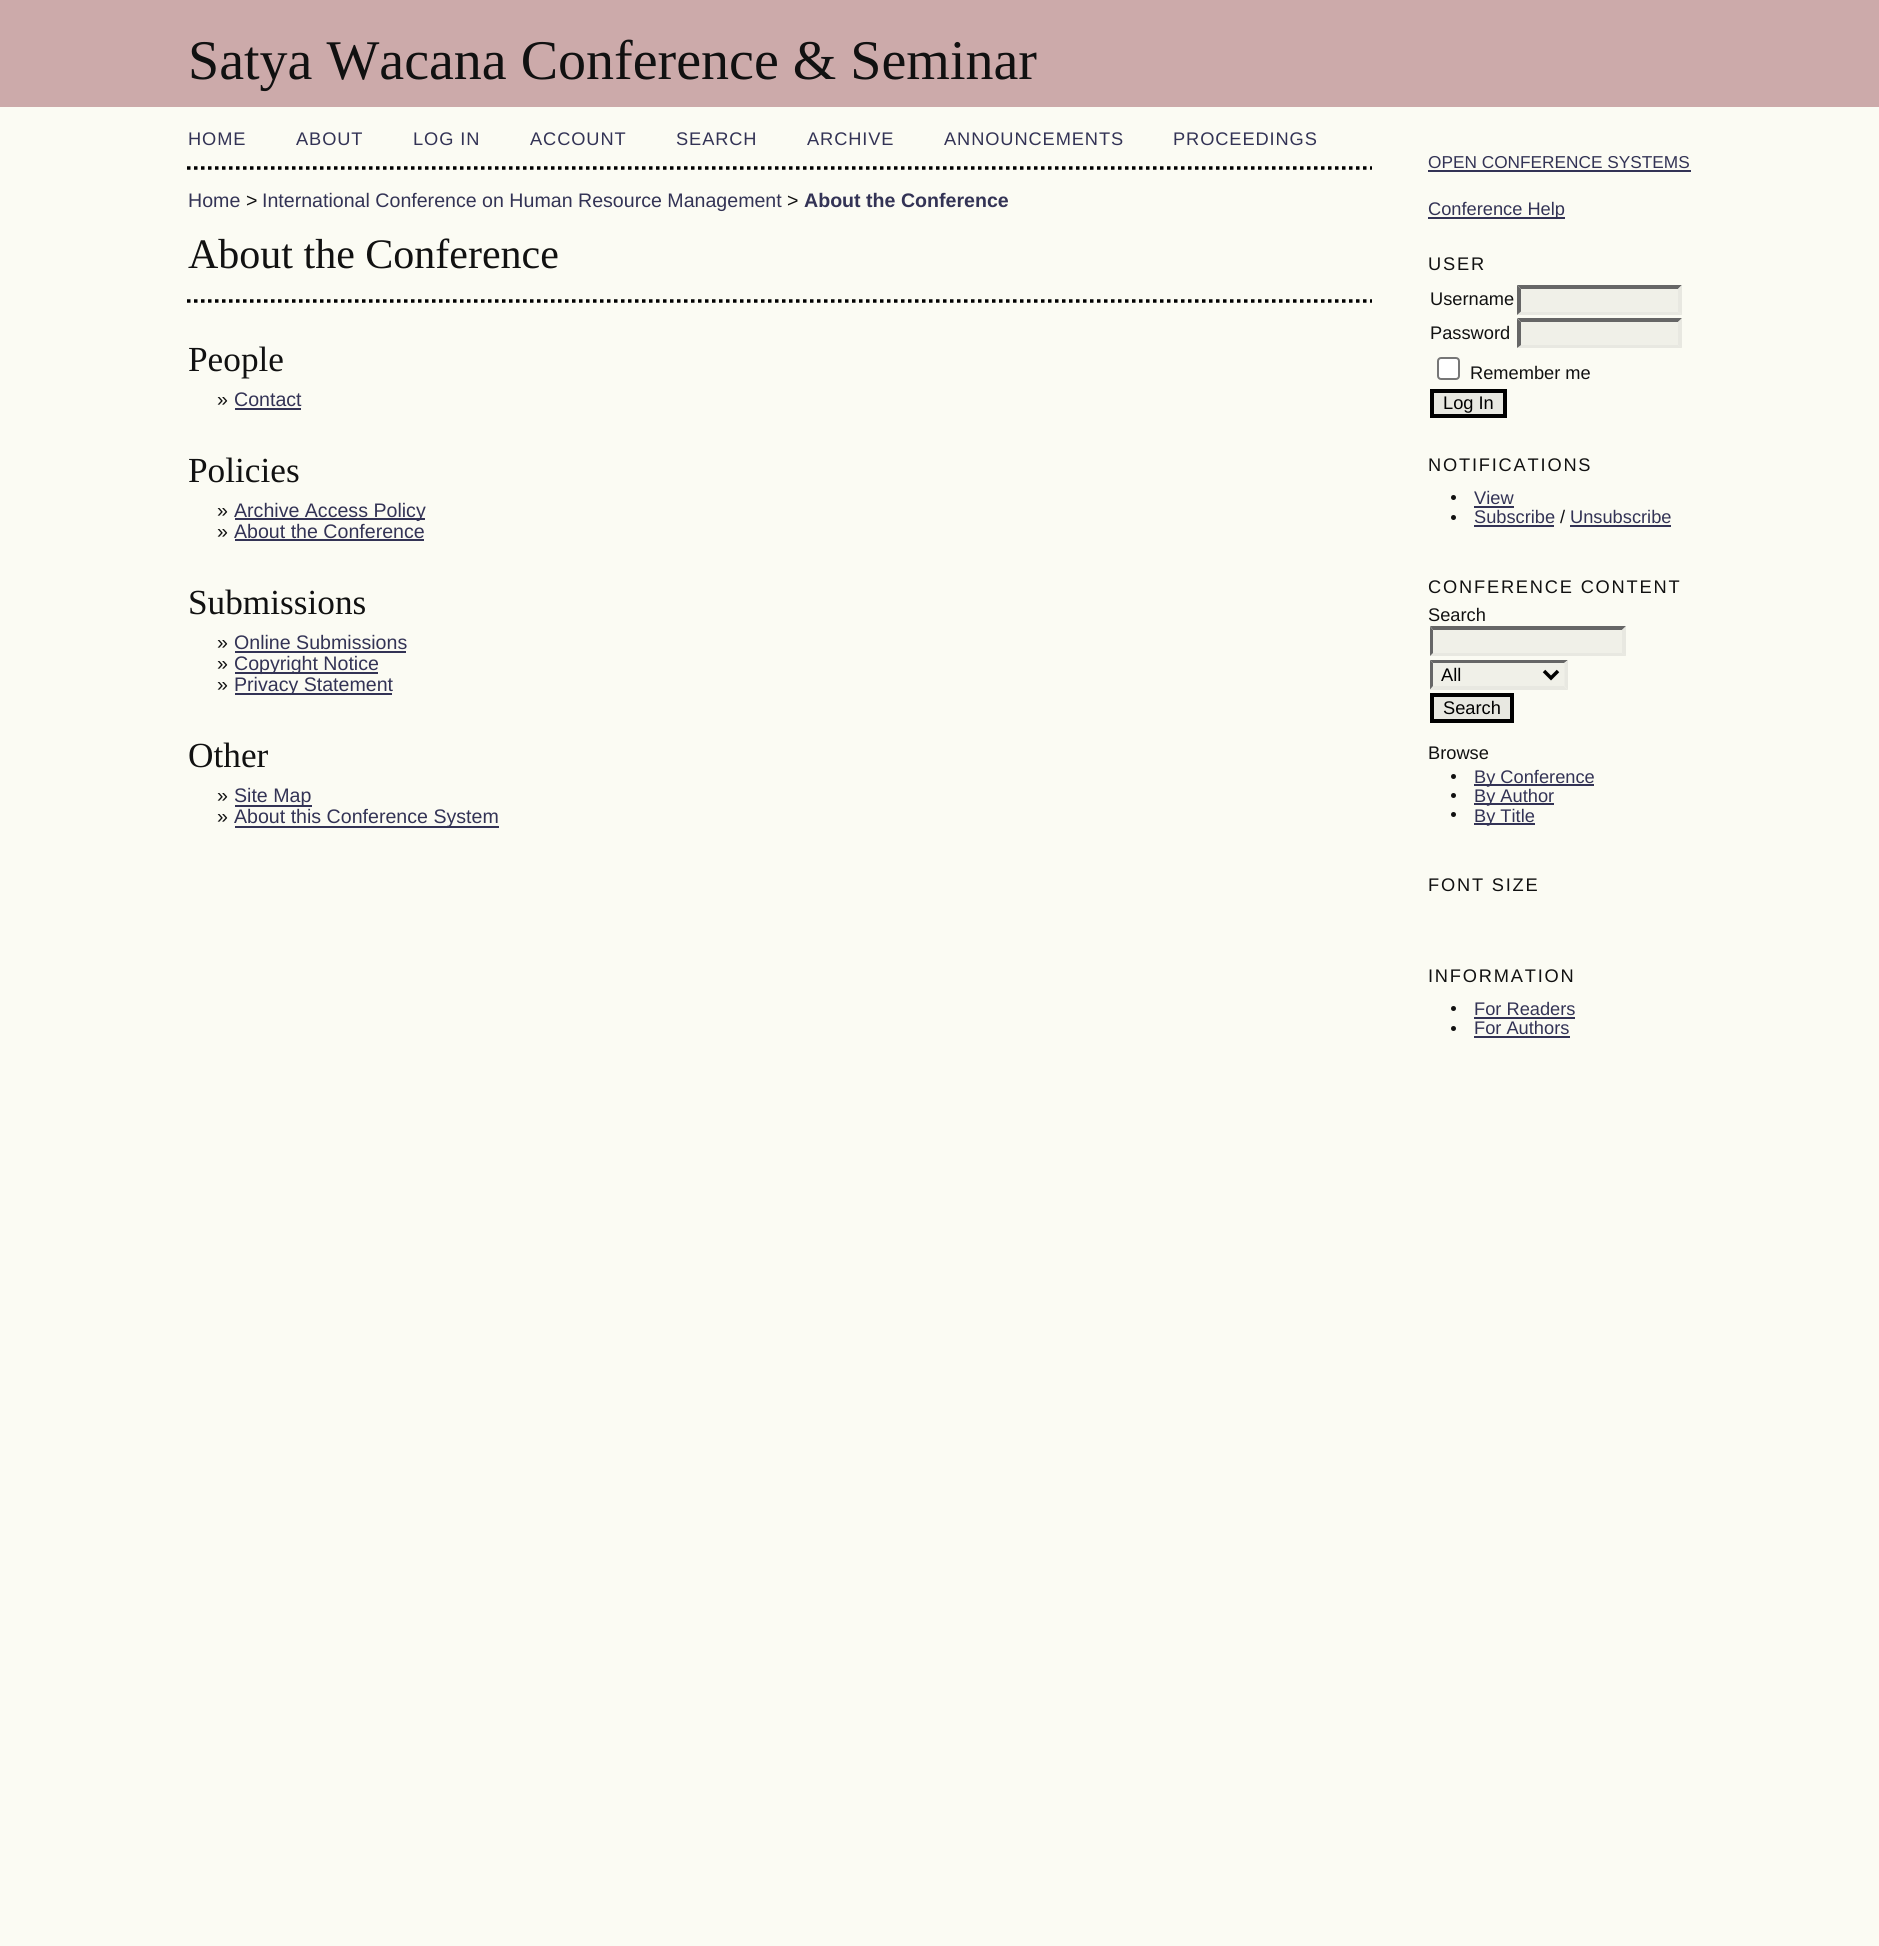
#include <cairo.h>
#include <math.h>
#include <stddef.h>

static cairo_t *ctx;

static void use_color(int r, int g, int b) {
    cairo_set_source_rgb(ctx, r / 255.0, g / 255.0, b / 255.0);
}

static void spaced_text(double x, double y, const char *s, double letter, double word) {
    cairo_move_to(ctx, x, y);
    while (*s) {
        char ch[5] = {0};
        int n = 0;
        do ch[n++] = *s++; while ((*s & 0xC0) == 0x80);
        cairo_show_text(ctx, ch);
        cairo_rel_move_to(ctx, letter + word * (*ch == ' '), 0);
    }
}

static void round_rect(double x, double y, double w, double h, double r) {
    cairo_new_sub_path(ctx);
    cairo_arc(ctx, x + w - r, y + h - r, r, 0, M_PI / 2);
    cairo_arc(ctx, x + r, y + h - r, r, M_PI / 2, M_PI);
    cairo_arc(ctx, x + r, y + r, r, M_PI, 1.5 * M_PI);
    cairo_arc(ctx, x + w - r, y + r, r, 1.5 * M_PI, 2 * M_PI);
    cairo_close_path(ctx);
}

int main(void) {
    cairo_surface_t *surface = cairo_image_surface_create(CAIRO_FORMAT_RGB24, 1879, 1946);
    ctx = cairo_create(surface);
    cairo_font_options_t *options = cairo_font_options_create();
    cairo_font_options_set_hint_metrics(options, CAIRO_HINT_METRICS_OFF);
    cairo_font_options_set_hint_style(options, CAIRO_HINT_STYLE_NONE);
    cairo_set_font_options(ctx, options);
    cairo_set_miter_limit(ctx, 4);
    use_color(251, 251, 243);
    cairo_paint(ctx);
    use_color(204, 170, 170);
    cairo_rectangle(ctx, 0, 0, 1879, 107);
    cairo_fill(ctx);
    cairo_select_font_face(ctx, "Liberation Serif", CAIRO_FONT_SLANT_NORMAL, CAIRO_FONT_WEIGHT_NORMAL);
    cairo_set_font_size(ctx, 56);
    use_color(17, 17, 17);
    cairo_move_to(ctx, 188, 79);
    cairo_show_text(ctx, "Satya Wacana Conference & Seminar");
    cairo_new_path(ctx);
    cairo_move_to(ctx, 187, 168);
    cairo_line_to(ctx, 1372, 168);
    use_color(0, 0, 0);
    cairo_set_line_width(ctx, 3.5);
    cairo_set_dash(ctx, (double[]){3.5, 3.5}, 2, 0);
    cairo_stroke(ctx);
    cairo_select_font_face(ctx, "Liberation Sans", CAIRO_FONT_SLANT_NORMAL, CAIRO_FONT_WEIGHT_NORMAL);
    cairo_set_font_size(ctx, 18.25);
    use_color(51, 51, 85);
    spaced_text(188, 145, "HOME", 0.9, 0);
    spaced_text(296, 145, "ABOUT", 0.9, 0);
    spaced_text(413, 145, "LOG IN", 0.9, 0);
    spaced_text(530, 145, "ACCOUNT", 0.9, 0);
    spaced_text(676, 145, "SEARCH", 0.9, 0);
    spaced_text(807, 145, "ARCHIVE", 0.9, 0);
    spaced_text(944, 145, "ANNOUNCEMENTS", 0.9, 0);
    spaced_text(1173, 145, "PROCEEDINGS", 0.9, 0);
    cairo_set_font_size(ctx, 19.6);
    cairo_move_to(ctx, 188, 207);
    cairo_show_text(ctx, "Home");
    use_color(17, 17, 17);
    cairo_move_to(ctx, 246, 207);
    cairo_show_text(ctx, ">");
    use_color(51, 51, 85);
    cairo_move_to(ctx, 262, 207);
    cairo_show_text(ctx, "International Conference on Human Resource Management");
    use_color(17, 17, 17);
    cairo_move_to(ctx, 787, 207);
    cairo_show_text(ctx, ">");
    cairo_select_font_face(ctx, "Liberation Sans", CAIRO_FONT_SLANT_NORMAL, CAIRO_FONT_WEIGHT_BOLD);
    use_color(51, 51, 85);
    cairo_move_to(ctx, 804, 207);
    cairo_show_text(ctx, "About the Conference");
    cairo_select_font_face(ctx, "Liberation Serif", CAIRO_FONT_SLANT_NORMAL, CAIRO_FONT_WEIGHT_NORMAL);
    cairo_set_font_size(ctx, 42);
    use_color(17, 17, 17);
    cairo_move_to(ctx, 188, 268);
    cairo_show_text(ctx, "About the Conference");
    cairo_new_path(ctx);
    cairo_move_to(ctx, 187, 301);
    cairo_line_to(ctx, 1372, 301);
    use_color(0, 0, 0);
    cairo_stroke(ctx);
    cairo_set_font_size(ctx, 35.25);
    use_color(17, 17, 17);
    cairo_move_to(ctx, 188, 371);
    cairo_show_text(ctx, "People");
    cairo_select_font_face(ctx, "Liberation Sans", CAIRO_FONT_SLANT_NORMAL, CAIRO_FONT_WEIGHT_NORMAL);
    cairo_set_font_size(ctx, 19.6);
    cairo_move_to(ctx, 217, 406);
    cairo_show_text(ctx, "»");
    use_color(51, 51, 85);
    cairo_move_to(ctx, 234, 406);
    cairo_show_text(ctx, "Contact");
    cairo_rectangle(ctx, 235, 408, 66, 2);
    cairo_fill(ctx);
    cairo_select_font_face(ctx, "Liberation Serif", CAIRO_FONT_SLANT_NORMAL, CAIRO_FONT_WEIGHT_NORMAL);
    cairo_set_font_size(ctx, 35.25);
    use_color(17, 17, 17);
    cairo_move_to(ctx, 188, 482);
    cairo_show_text(ctx, "Policies");
    cairo_select_font_face(ctx, "Liberation Sans", CAIRO_FONT_SLANT_NORMAL, CAIRO_FONT_WEIGHT_NORMAL);
    cairo_set_font_size(ctx, 19.6);
    cairo_move_to(ctx, 217, 517);
    cairo_show_text(ctx, "»");
    use_color(51, 51, 85);
    cairo_rectangle(ctx, 235, 518, 190, 2);
    cairo_fill(ctx);
    cairo_move_to(ctx, 234, 517);
    cairo_show_text(ctx, "Archive Access Policy");
    use_color(17, 17, 17);
    cairo_move_to(ctx, 217, 538);
    cairo_show_text(ctx, "»");
    use_color(51, 51, 85);
    cairo_move_to(ctx, 234, 538);
    cairo_show_text(ctx, "About the Conference");
    cairo_rectangle(ctx, 235, 539, 189, 2);
    cairo_fill(ctx);
    cairo_select_font_face(ctx, "Liberation Serif", CAIRO_FONT_SLANT_NORMAL, CAIRO_FONT_WEIGHT_NORMAL);
    cairo_set_font_size(ctx, 35.25);
    use_color(17, 17, 17);
    cairo_move_to(ctx, 188, 614);
    cairo_show_text(ctx, "Submissions");
    cairo_select_font_face(ctx, "Liberation Sans", CAIRO_FONT_SLANT_NORMAL, CAIRO_FONT_WEIGHT_NORMAL);
    cairo_set_font_size(ctx, 19.6);
    cairo_move_to(ctx, 217, 649);
    cairo_show_text(ctx, "»");
    use_color(51, 51, 85);
    cairo_move_to(ctx, 234, 649);
    cairo_show_text(ctx, "Online Submissions");
    cairo_rectangle(ctx, 235, 651, 171, 2);
    cairo_fill(ctx);
    use_color(17, 17, 17);
    cairo_move_to(ctx, 217, 670);
    cairo_show_text(ctx, "»");
    use_color(51, 51, 85);
    cairo_rectangle(ctx, 235, 672, 143, 2);
    cairo_fill(ctx);
    cairo_move_to(ctx, 234, 670);
    cairo_show_text(ctx, "Copyright Notice");
    use_color(17, 17, 17);
    cairo_move_to(ctx, 217, 691);
    cairo_show_text(ctx, "»");
    use_color(51, 51, 85);
    cairo_rectangle(ctx, 235, 693, 157, 2);
    cairo_fill(ctx);
    cairo_move_to(ctx, 234, 691);
    cairo_show_text(ctx, "Privacy Statement");
    cairo_select_font_face(ctx, "Liberation Serif", CAIRO_FONT_SLANT_NORMAL, CAIRO_FONT_WEIGHT_NORMAL);
    cairo_set_font_size(ctx, 35.25);
    use_color(17, 17, 17);
    cairo_move_to(ctx, 188, 767);
    cairo_show_text(ctx, "Other");
    cairo_select_font_face(ctx, "Liberation Sans", CAIRO_FONT_SLANT_NORMAL, CAIRO_FONT_WEIGHT_NORMAL);
    cairo_set_font_size(ctx, 19.6);
    cairo_move_to(ctx, 217, 802);
    cairo_show_text(ctx, "»");
    use_color(51, 51, 85);
    cairo_rectangle(ctx, 235, 805, 77, 2);
    cairo_fill(ctx);
    cairo_move_to(ctx, 234, 802);
    cairo_show_text(ctx, "Site Map");
    use_color(17, 17, 17);
    cairo_move_to(ctx, 217, 823);
    cairo_show_text(ctx, "»");
    use_color(51, 51, 85);
    cairo_rectangle(ctx, 235, 826, 264, 2);
    cairo_fill(ctx);
    cairo_move_to(ctx, 234, 823);
    cairo_show_text(ctx, "About this Conference System");
    cairo_set_font_size(ctx, 17.25);
    cairo_move_to(ctx, 1428, 168);
    cairo_show_text(ctx, "OPEN CONFERENCE SYSTEMS");
    cairo_rectangle(ctx, 1428, 170, 263, 2);
    cairo_fill(ctx);
    cairo_rectangle(ctx, 1428, 217, 137, 2);
    cairo_fill(ctx);
    cairo_set_font_size(ctx, 18.25);
    cairo_move_to(ctx, 1428, 215);
    cairo_show_text(ctx, "Conference Help");
    use_color(17, 17, 17);
    spaced_text(1428, 270, "USER", 1.8, 0);
    cairo_move_to(ctx, 1430, 305);
    cairo_show_text(ctx, "Username");
    use_color(240, 240, 232);
    cairo_rectangle(ctx, 1517, 285, 165, 30);
    cairo_fill(ctx);
    use_color(102, 102, 102);
    cairo_new_path(ctx);
    cairo_move_to(ctx, 1517, 285);
    cairo_line_to(ctx, 1682, 285);
    cairo_line_to(ctx, 1678, 289);
    cairo_line_to(ctx, 1521, 289);
    cairo_close_path(ctx);
    cairo_fill(ctx);
    use_color(232, 232, 225);
    cairo_new_path(ctx);
    cairo_move_to(ctx, 1682, 285);
    cairo_line_to(ctx, 1682, 315);
    cairo_line_to(ctx, 1678, 311.5);
    cairo_line_to(ctx, 1678, 289);
    cairo_close_path(ctx);
    cairo_fill(ctx);
    cairo_new_path(ctx);
    cairo_move_to(ctx, 1682, 315);
    cairo_line_to(ctx, 1517, 315);
    cairo_line_to(ctx, 1521, 312);
    cairo_line_to(ctx, 1678, 312);
    cairo_close_path(ctx);
    cairo_fill(ctx);
    use_color(102, 102, 102);
    cairo_new_path(ctx);
    cairo_move_to(ctx, 1517, 315);
    cairo_line_to(ctx, 1517, 285);
    cairo_line_to(ctx, 1521, 289);
    cairo_line_to(ctx, 1521, 311.5);
    cairo_close_path(ctx);
    cairo_fill(ctx);
    use_color(17, 17, 17);
    cairo_move_to(ctx, 1430, 339);
    cairo_show_text(ctx, "Password");
    use_color(240, 240, 232);
    cairo_rectangle(ctx, 1517, 319, 165, 29);
    cairo_fill(ctx);
    use_color(102, 102, 102);
    cairo_new_path(ctx);
    cairo_move_to(ctx, 1517, 318);
    cairo_line_to(ctx, 1682, 318);
    cairo_line_to(ctx, 1678, 322);
    cairo_line_to(ctx, 1521, 322);
    cairo_close_path(ctx);
    cairo_fill(ctx);
    use_color(232, 232, 225);
    cairo_new_path(ctx);
    cairo_move_to(ctx, 1682, 318.5);
    cairo_line_to(ctx, 1682, 348);
    cairo_line_to(ctx, 1678, 345);
    cairo_line_to(ctx, 1678, 322);
    cairo_close_path(ctx);
    cairo_fill(ctx);
    cairo_new_path(ctx);
    cairo_move_to(ctx, 1682, 348);
    cairo_line_to(ctx, 1517, 348);
    cairo_line_to(ctx, 1521, 345);
    cairo_line_to(ctx, 1678, 345);
    cairo_close_path(ctx);
    cairo_fill(ctx);
    use_color(102, 102, 102);
    cairo_new_path(ctx);
    cairo_move_to(ctx, 1517, 348);
    cairo_line_to(ctx, 1517, 318.5);
    cairo_line_to(ctx, 1521, 322);
    cairo_line_to(ctx, 1521, 345);
    cairo_close_path(ctx);
    cairo_fill(ctx);
    use_color(255, 255, 255);
    round_rect(1438, 358, 21, 21, 3);
    cairo_fill_preserve(ctx);
    use_color(118, 118, 118);
    cairo_set_line_width(ctx, 2);
    cairo_set_dash(ctx, NULL, 0, 0);
    cairo_stroke(ctx);
    use_color(17, 17, 17);
    cairo_move_to(ctx, 1470, 379);
    cairo_show_text(ctx, "Remember me");
    use_color(232, 232, 225);
    cairo_rectangle(ctx, 1432, 391, 73, 25);
    cairo_fill_preserve(ctx);
    use_color(0, 0, 0);
    cairo_set_line_width(ctx, 4);
    cairo_stroke(ctx);
    cairo_move_to(ctx, 1443, 409);
    cairo_show_text(ctx, "Log In");
    use_color(17, 17, 17);
    spaced_text(1428, 471, "NOTIFICATIONS", 1.8, 0);
    cairo_new_path(ctx);
    cairo_arc(ctx, 1453.5, 497.5, 2.5, 0, 2 * M_PI);
    cairo_fill(ctx);
    use_color(51, 51, 85);
    cairo_move_to(ctx, 1474, 504);
    cairo_show_text(ctx, "View");
    cairo_rectangle(ctx, 1474, 506, 40, 2);
    cairo_fill(ctx);
    use_color(17, 17, 17);
    cairo_arc(ctx, 1453.5, 517.5, 2.5, 0, 2 * M_PI);
    cairo_fill(ctx);
    use_color(51, 51, 85);
    cairo_move_to(ctx, 1474, 523);
    cairo_show_text(ctx, "Subscribe");
    cairo_rectangle(ctx, 1474, 525, 80, 2);
    cairo_fill(ctx);
    use_color(17, 17, 17);
    cairo_move_to(ctx, 1560, 523);
    cairo_show_text(ctx, "/");
    use_color(51, 51, 85);
    cairo_move_to(ctx, 1570, 523);
    cairo_show_text(ctx, "Unsubscribe");
    cairo_rectangle(ctx, 1570, 525, 101, 2);
    cairo_fill(ctx);
    use_color(17, 17, 17);
    spaced_text(1428, 593, "CONFERENCE CONTENT", 1.8, 0);
    cairo_move_to(ctx, 1428, 621);
    cairo_show_text(ctx, "Search");
    use_color(240, 240, 232);
    cairo_rectangle(ctx, 1430, 627, 196, 29);
    cairo_fill(ctx);
    use_color(102, 102, 102);
    cairo_new_path(ctx);
    cairo_move_to(ctx, 1430, 626);
    cairo_line_to(ctx, 1626, 626);
    cairo_line_to(ctx, 1622, 630);
    cairo_line_to(ctx, 1433, 630);
    cairo_close_path(ctx);
    cairo_fill(ctx);
    use_color(232, 232, 225);
    cairo_new_path(ctx);
    cairo_move_to(ctx, 1626, 626.5);
    cairo_line_to(ctx, 1626, 656);
    cairo_line_to(ctx, 1622, 653);
    cairo_line_to(ctx, 1622, 630);
    cairo_close_path(ctx);
    cairo_fill(ctx);
    cairo_new_path(ctx);
    cairo_move_to(ctx, 1626, 656);
    cairo_line_to(ctx, 1430, 656);
    cairo_line_to(ctx, 1433, 653);
    cairo_line_to(ctx, 1622, 653);
    cairo_close_path(ctx);
    cairo_fill(ctx);
    use_color(102, 102, 102);
    cairo_new_path(ctx);
    cairo_move_to(ctx, 1430, 656);
    cairo_line_to(ctx, 1430, 626.5);
    cairo_line_to(ctx, 1433, 630);
    cairo_line_to(ctx, 1433, 653);
    cairo_close_path(ctx);
    cairo_fill(ctx);
    use_color(240, 240, 232);
    cairo_rectangle(ctx, 1430, 660, 138, 30);
    cairo_fill(ctx);
    use_color(102, 102, 102);
    cairo_new_path(ctx);
    cairo_move_to(ctx, 1430, 660);
    cairo_line_to(ctx, 1568, 660);
    cairo_line_to(ctx, 1564, 663);
    cairo_line_to(ctx, 1433, 663);
    cairo_close_path(ctx);
    cairo_fill(ctx);
    use_color(232, 232, 225);
    cairo_new_path(ctx);
    cairo_move_to(ctx, 1568, 660);
    cairo_line_to(ctx, 1568, 689.5);
    cairo_line_to(ctx, 1564.5, 686);
    cairo_line_to(ctx, 1564.5, 663);
    cairo_close_path(ctx);
    cairo_fill(ctx);
    cairo_new_path(ctx);
    cairo_move_to(ctx, 1568, 690);
    cairo_line_to(ctx, 1430, 690);
    cairo_line_to(ctx, 1433, 686);
    cairo_line_to(ctx, 1564, 686);
    cairo_close_path(ctx);
    cairo_fill(ctx);
    use_color(102, 102, 102);
    cairo_new_path(ctx);
    cairo_move_to(ctx, 1430, 689.5);
    cairo_line_to(ctx, 1430, 660);
    cairo_line_to(ctx, 1433, 663);
    cairo_line_to(ctx, 1433, 686);
    cairo_close_path(ctx);
    cairo_fill(ctx);
    cairo_new_path(ctx);
    cairo_move_to(ctx, 1544, 671);
    cairo_line_to(ctx, 1551, 678);
    cairo_line_to(ctx, 1558, 671);
    use_color(0, 0, 0);
    cairo_set_line_width(ctx, 3.5);
    cairo_stroke(ctx);
    cairo_move_to(ctx, 1441, 681);
    cairo_show_text(ctx, "All");
    use_color(232, 232, 225);
    cairo_rectangle(ctx, 1432, 695, 80, 26);
    cairo_fill_preserve(ctx);
    use_color(0, 0, 0);
    cairo_set_line_width(ctx, 4);
    cairo_stroke(ctx);
    cairo_move_to(ctx, 1443, 714);
    cairo_show_text(ctx, "Search");
    use_color(17, 17, 17);
    cairo_move_to(ctx, 1428, 759);
    cairo_show_text(ctx, "Browse");
    cairo_new_path(ctx);
    cairo_arc(ctx, 1453.5, 776.5, 2.5, 0, 2 * M_PI);
    cairo_fill(ctx);
    use_color(51, 51, 85);
    cairo_rectangle(ctx, 1474, 784, 120, 2);
    cairo_fill(ctx);
    cairo_move_to(ctx, 1474, 783);
    cairo_show_text(ctx, "By Conference");
    use_color(17, 17, 17);
    cairo_new_path(ctx);
    cairo_arc(ctx, 1453.5, 795.5, 2.5, 0, 2 * M_PI);
    cairo_fill(ctx);
    use_color(51, 51, 85);
    cairo_rectangle(ctx, 1474, 803, 80, 2);
    cairo_fill(ctx);
    cairo_move_to(ctx, 1474, 802);
    cairo_show_text(ctx, "By Author");
    use_color(17, 17, 17);
    cairo_new_path(ctx);
    cairo_arc(ctx, 1453.5, 814.5, 2.5, 0, 2 * M_PI);
    cairo_fill(ctx);
    use_color(51, 51, 85);
    cairo_rectangle(ctx, 1474, 823, 61, 2);
    cairo_fill(ctx);
    cairo_move_to(ctx, 1474, 822);
    cairo_show_text(ctx, "By Title");
    use_color(17, 17, 17);
    spaced_text(1428, 891, "FONT SIZE", 1.8, 0);
    spaced_text(1428, 982, "INFORMATION", 1.8, 0);
    cairo_new_path(ctx);
    cairo_arc(ctx, 1453.5, 1008.5, 2.5, 0, 2 * M_PI);
    cairo_fill(ctx);
    use_color(51, 51, 85);
    cairo_move_to(ctx, 1474, 1015);
    cairo_show_text(ctx, "For Readers");
    cairo_rectangle(ctx, 1474, 1017, 101, 2);
    cairo_fill(ctx);
    use_color(17, 17, 17);
    cairo_arc(ctx, 1453.5, 1028.5, 2.5, 0, 2 * M_PI);
    cairo_fill(ctx);
    use_color(51, 51, 85);
    cairo_move_to(ctx, 1474, 1034);
    cairo_show_text(ctx, "For Authors");
    cairo_rectangle(ctx, 1474, 1036, 96, 2);
    cairo_fill(ctx);
    cairo_surface_write_to_png(surface, "result.png");
    cairo_font_options_destroy(options);
    cairo_destroy(ctx);
    cairo_surface_destroy(surface);
    return 0;
}
